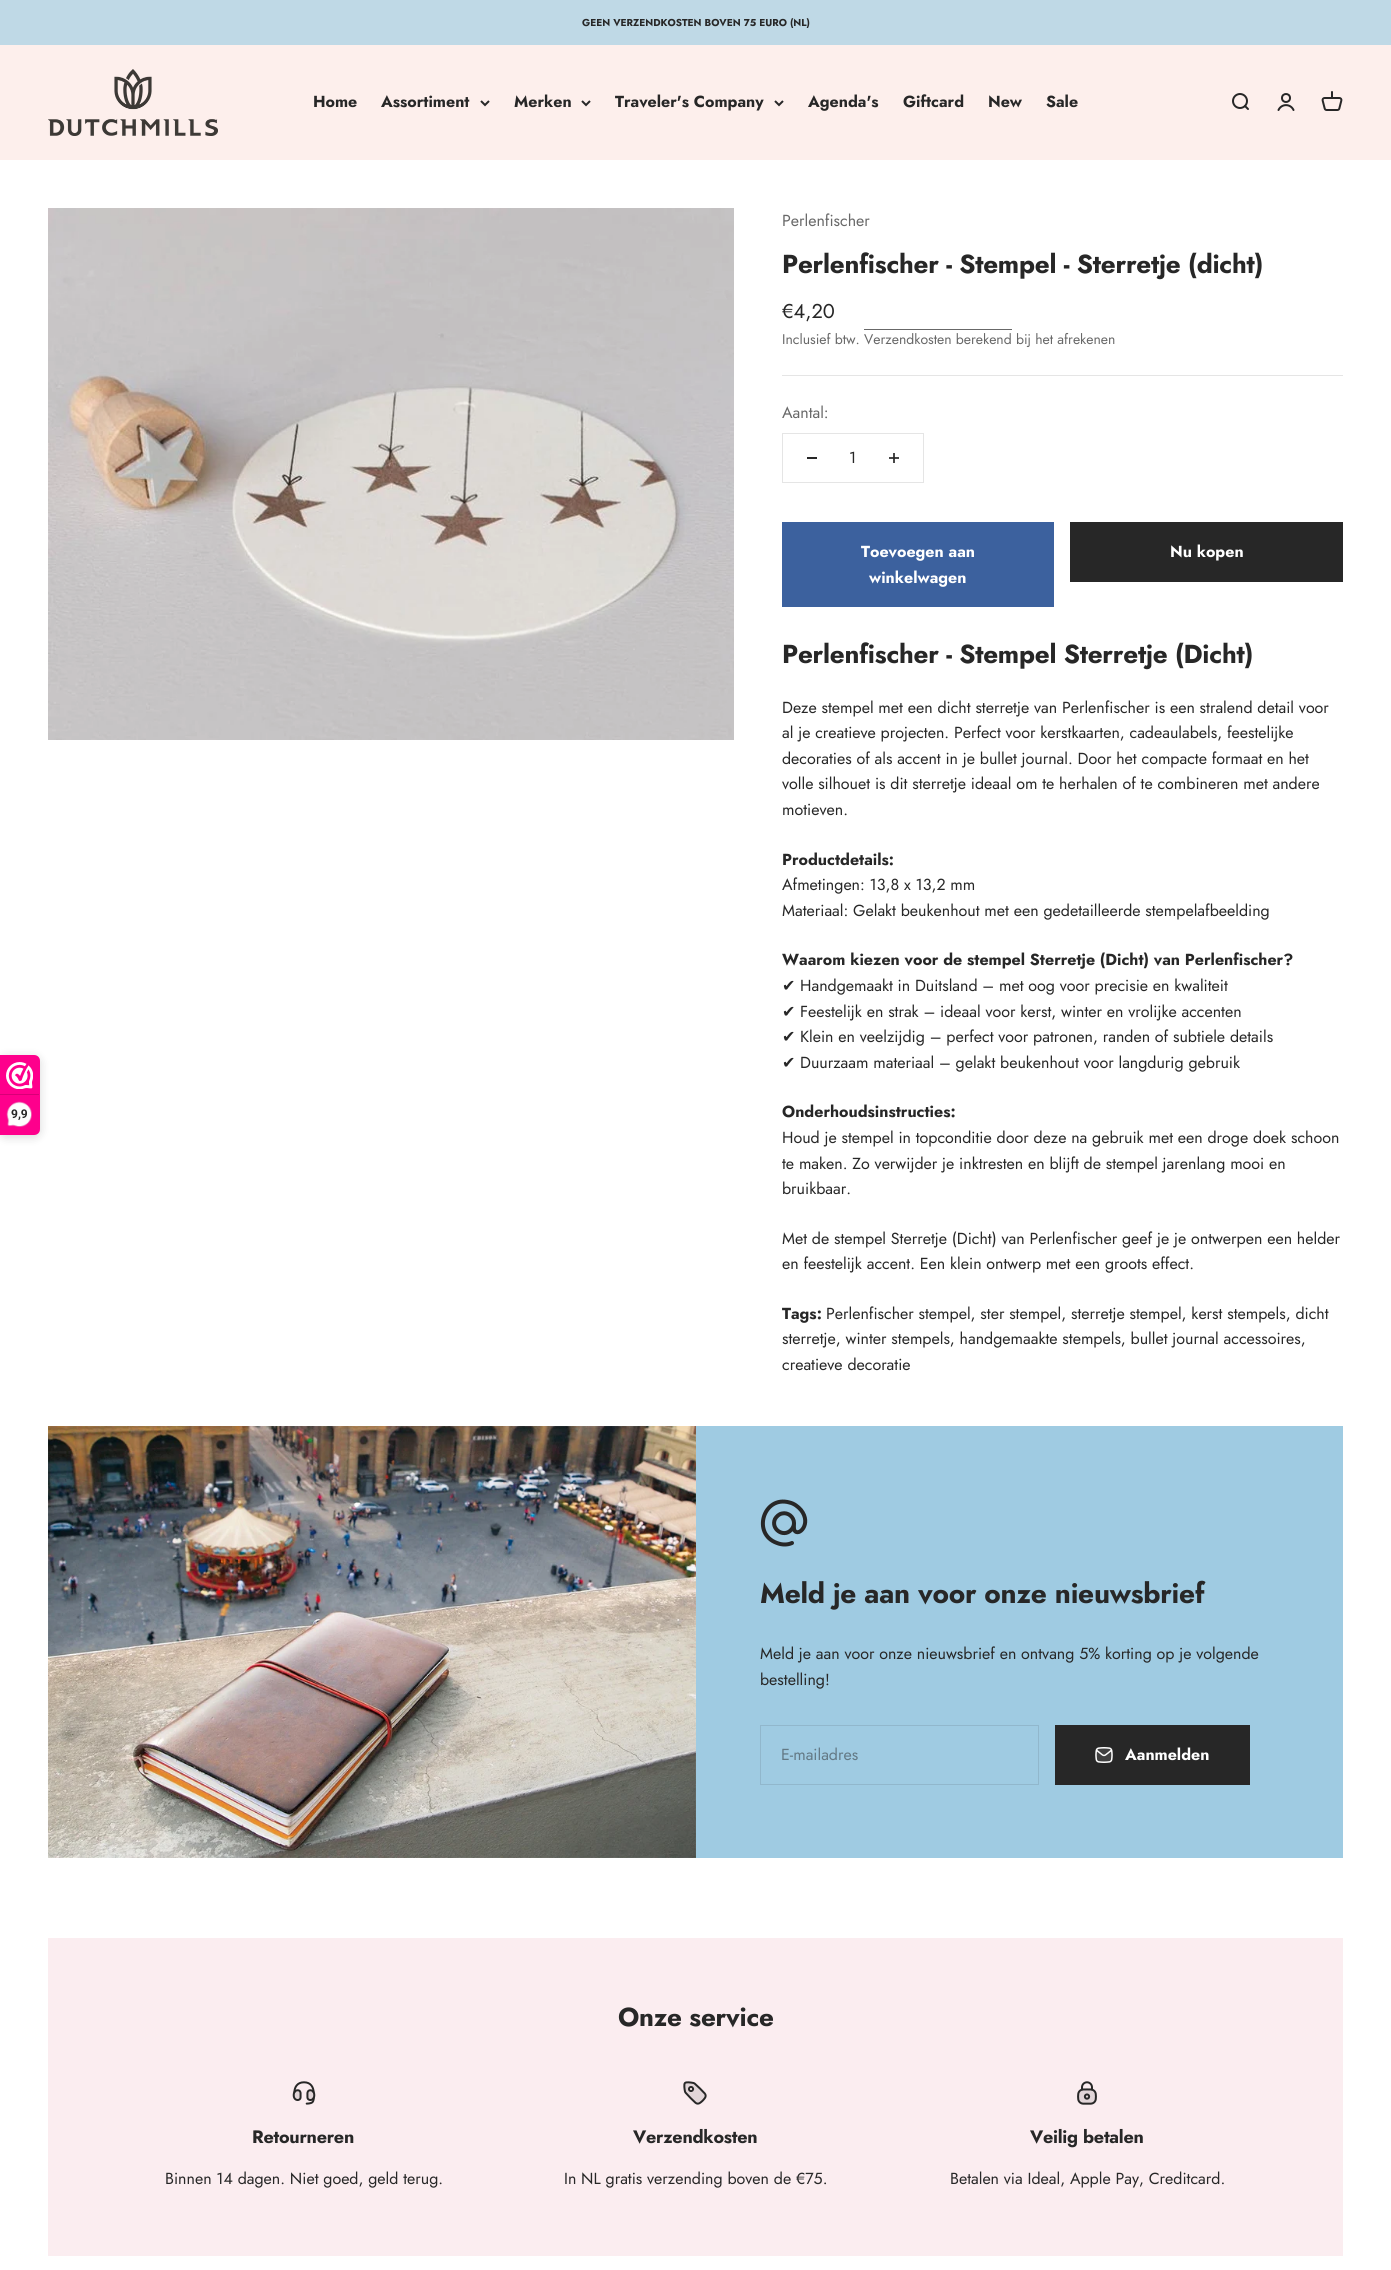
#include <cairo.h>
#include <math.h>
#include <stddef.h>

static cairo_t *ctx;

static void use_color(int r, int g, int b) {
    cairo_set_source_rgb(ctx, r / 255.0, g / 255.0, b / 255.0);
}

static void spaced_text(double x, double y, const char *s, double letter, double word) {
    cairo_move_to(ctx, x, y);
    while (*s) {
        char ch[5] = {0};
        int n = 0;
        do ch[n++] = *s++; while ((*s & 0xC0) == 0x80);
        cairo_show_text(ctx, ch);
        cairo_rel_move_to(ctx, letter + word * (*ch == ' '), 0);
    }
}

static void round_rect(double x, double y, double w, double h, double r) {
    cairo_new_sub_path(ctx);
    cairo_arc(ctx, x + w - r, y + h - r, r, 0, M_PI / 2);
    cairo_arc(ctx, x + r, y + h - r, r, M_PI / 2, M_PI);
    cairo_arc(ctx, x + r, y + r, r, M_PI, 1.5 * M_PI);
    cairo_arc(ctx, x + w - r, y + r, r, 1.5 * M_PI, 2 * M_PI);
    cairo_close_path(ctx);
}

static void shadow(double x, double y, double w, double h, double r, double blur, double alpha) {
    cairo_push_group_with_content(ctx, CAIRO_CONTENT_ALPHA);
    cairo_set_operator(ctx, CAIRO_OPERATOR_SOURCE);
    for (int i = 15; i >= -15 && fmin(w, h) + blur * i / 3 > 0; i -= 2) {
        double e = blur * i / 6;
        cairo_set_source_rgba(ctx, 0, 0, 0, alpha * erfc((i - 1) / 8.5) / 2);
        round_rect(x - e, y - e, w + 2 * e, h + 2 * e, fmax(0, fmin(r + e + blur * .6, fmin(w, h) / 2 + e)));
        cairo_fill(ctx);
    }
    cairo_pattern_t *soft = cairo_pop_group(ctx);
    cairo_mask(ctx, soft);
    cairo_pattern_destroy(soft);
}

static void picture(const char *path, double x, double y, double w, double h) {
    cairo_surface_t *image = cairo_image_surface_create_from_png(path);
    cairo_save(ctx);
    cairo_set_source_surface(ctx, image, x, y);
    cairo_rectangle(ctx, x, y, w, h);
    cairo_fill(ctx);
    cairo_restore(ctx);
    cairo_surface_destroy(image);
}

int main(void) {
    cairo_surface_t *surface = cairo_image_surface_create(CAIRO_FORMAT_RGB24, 1391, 2270);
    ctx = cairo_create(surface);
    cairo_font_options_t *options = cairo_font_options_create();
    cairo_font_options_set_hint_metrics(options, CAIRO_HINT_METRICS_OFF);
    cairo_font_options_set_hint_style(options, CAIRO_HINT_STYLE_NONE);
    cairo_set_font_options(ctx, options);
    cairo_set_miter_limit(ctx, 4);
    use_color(255, 255, 255);
    cairo_paint(ctx);
    use_color(71, 71, 71);
    cairo_rectangle(ctx, 889, 457, 10, 2);
    cairo_fill(ctx);
    use_color(191, 217, 230);
    cairo_rectangle(ctx, 0, 0, 1391, 45);
    cairo_fill(ctx);
    cairo_select_font_face(ctx, "Jost", CAIRO_FONT_SLANT_NORMAL, CAIRO_FONT_WEIGHT_BOLD);
    cairo_set_font_size(ctx, 10);
    use_color(39, 39, 39);
    cairo_move_to(ctx, 582, 26);
    cairo_show_text(ctx, "GEEN VERZENDKOSTEN BOVEN 75 EURO (NL)");
    use_color(253, 239, 236);
    cairo_rectangle(ctx, 0, 45, 1391, 115);
    cairo_fill(ctx);
    picture("img1.png", 48, 69, 170, 67);
    cairo_set_font_size(ctx, 16);
    use_color(39, 39, 39);
    cairo_move_to(ctx, 313, 107);
    cairo_show_text(ctx, "Home");
    cairo_move_to(ctx, 381, 107);
    cairo_show_text(ctx, "Assortiment");
    cairo_new_path(ctx);
    cairo_move_to(ctx, 481, 101);
    cairo_line_to(ctx, 485, 105);
    cairo_line_to(ctx, 489, 101);
    cairo_stroke(ctx);
    cairo_move_to(ctx, 514, 107);
    cairo_show_text(ctx, "Merken");
    cairo_new_path(ctx);
    cairo_move_to(ctx, 582, 101);
    cairo_line_to(ctx, 586, 105);
    cairo_line_to(ctx, 590, 101);
    cairo_stroke(ctx);
    cairo_move_to(ctx, 615, 107);
    cairo_show_text(ctx, "Traveler's Company");
    cairo_new_path(ctx);
    cairo_move_to(ctx, 775, 101);
    cairo_line_to(ctx, 779, 105);
    cairo_line_to(ctx, 783, 101);
    cairo_stroke(ctx);
    cairo_move_to(ctx, 808, 107);
    cairo_show_text(ctx, "Agenda's");
    cairo_move_to(ctx, 903, 107);
    cairo_show_text(ctx, "Giftcard");
    cairo_move_to(ctx, 988, 107);
    cairo_show_text(ctx, "New");
    cairo_move_to(ctx, 1046, 107);
    cairo_show_text(ctx, "Sale");
    picture("img2.png", 1232, 93, 17, 17);
    cairo_arc(ctx, 1286, 98, 4, 0, 2 * M_PI);
    cairo_stroke(ctx);
    cairo_new_path(ctx);
    cairo_move_to(ctx, 1278.5, 110);
    cairo_curve_to(ctx, 1281.5, 103.5, 1290.5, 103.5, 1293.5, 110);
    cairo_set_line_cap(ctx, CAIRO_LINE_CAP_ROUND);
    cairo_stroke(ctx);
    picture("img3.png", 1321, 91, 22, 20);
    use_color(0, 0, 0);
    shadow(0, 1057, 40, 80, 6, 5, 0.15);
    use_color(254, 0, 140);
    cairo_new_path(ctx);
    cairo_move_to(ctx, 0, 1055);
    cairo_line_to(ctx, 34, 1055);
    cairo_curve_to(ctx, 37.5, 1055, 40, 1057.5, 40, 1061);
    cairo_line_to(ctx, 40, 1129);
    cairo_curve_to(ctx, 40, 1132.5, 37.5, 1135, 34, 1135);
    cairo_line_to(ctx, 0, 1135);
    cairo_close_path(ctx);
    cairo_fill(ctx);
    picture("img4.png", 6, 1062, 27, 27);
    use_color(216, 0, 119);
    cairo_rectangle(ctx, 0, 1094, 39, 1);
    cairo_fill(ctx);
    picture("img5.png", 6, 1101, 26, 26);
    cairo_select_font_face(ctx, "Roboto", CAIRO_FONT_SLANT_NORMAL, CAIRO_FONT_WEIGHT_BOLD);
    cairo_set_font_size(ctx, 12);
    use_color(39, 39, 39);
    cairo_move_to(ctx, 11, 1118);
    cairo_show_text(ctx, "9,9");
    picture("img6.png", 48, 208, 686, 532);
    cairo_select_font_face(ctx, "Jost", CAIRO_FONT_SLANT_NORMAL, CAIRO_FONT_WEIGHT_NORMAL);
    cairo_set_font_size(ctx, 16);
    use_color(104, 104, 104);
    cairo_move_to(ctx, 782, 226);
    cairo_show_text(ctx, "Perlenfischer");
    cairo_select_font_face(ctx, "Jost", CAIRO_FONT_SLANT_NORMAL, CAIRO_FONT_WEIGHT_BOLD);
    cairo_set_font_size(ctx, 26);
    use_color(39, 39, 39);
    spaced_text(782, 273, "Perlenfischer - Stempel - Sterretje (dicht)", -0.25, 0);
    cairo_select_font_face(ctx, "Jost", CAIRO_FONT_SLANT_NORMAL, CAIRO_FONT_WEIGHT_NORMAL);
    cairo_set_font_size(ctx, 20);
    cairo_move_to(ctx, 782, 318);
    cairo_show_text(ctx, "€4,20");
    use_color(104, 104, 104);
    cairo_rectangle(ctx, 864, 329, 148, 1);
    cairo_fill(ctx);
    cairo_set_font_size(ctx, 14);
    cairo_move_to(ctx, 782, 344);
    cairo_show_text(ctx, "Inclusief btw. Verzendkosten berekend bij het afrekenen");
    use_color(229, 229, 229);
    cairo_rectangle(ctx, 782, 375, 561, 1);
    cairo_fill(ctx);
    cairo_set_font_size(ctx, 16);
    use_color(104, 104, 104);
    cairo_move_to(ctx, 782, 418);
    cairo_show_text(ctx, "Aantal:");
    cairo_rectangle(ctx, 782.5, 433.5, 141, 49);
    use_color(229, 229, 229);
    cairo_set_line_width(ctx, 1);
    cairo_set_line_cap(ctx, CAIRO_LINE_CAP_BUTT);
    cairo_stroke(ctx);
    use_color(39, 39, 39);
    cairo_rectangle(ctx, 807, 457, 10, 2);
    cairo_fill(ctx);
    cairo_move_to(ctx, 849, 463);
    cairo_show_text(ctx, "1");
    use_color(71, 71, 71);
    cairo_rectangle(ctx, 893, 453, 2, 10);
    cairo_fill(ctx);
    use_color(44, 44, 44);
    cairo_rectangle(ctx, 893, 457, 2, 2);
    cairo_fill(ctx);
    use_color(60, 97, 158);
    cairo_rectangle(ctx, 782, 522, 272, 85);
    cairo_fill(ctx);
    cairo_select_font_face(ctx, "Jost", CAIRO_FONT_SLANT_NORMAL, CAIRO_FONT_WEIGHT_BOLD);
    use_color(255, 255, 255);
    cairo_move_to(ctx, 861, 557);
    cairo_show_text(ctx, "Toevoegen aan");
    cairo_move_to(ctx, 869, 583);
    cairo_show_text(ctx, "winkelwagen");
    use_color(39, 39, 39);
    cairo_rectangle(ctx, 1070, 522, 273, 60);
    cairo_fill(ctx);
    use_color(255, 255, 255);
    cairo_move_to(ctx, 1170, 557);
    cairo_show_text(ctx, "Nu kopen");
    cairo_set_font_size(ctx, 26);
    use_color(39, 39, 39);
    spaced_text(782, 663, "Perlenfischer - Stempel Sterretje (Dicht)", -0.25, 0);
    cairo_select_font_face(ctx, "Jost", CAIRO_FONT_SLANT_NORMAL, CAIRO_FONT_WEIGHT_NORMAL);
    cairo_set_font_size(ctx, 16);
    cairo_move_to(ctx, 782, 713);
    cairo_show_text(ctx, "Deze stempel met een dicht sterretje van Perlenfischer is een stralend detail voor");
    cairo_move_to(ctx, 782, 738);
    cairo_show_text(ctx, "al je creatieve projecten. Perfect voor kerstkaarten, cadeaulabels, feestelijke");
    cairo_move_to(ctx, 782, 764);
    cairo_show_text(ctx, "decoraties of als accent in je bullet journal. Door het compacte formaat en het");
    cairo_move_to(ctx, 782, 789);
    cairo_show_text(ctx, "volle silhouet is dit sterretje ideaal om te herhalen of te combineren met andere");
    cairo_move_to(ctx, 782, 815);
    cairo_show_text(ctx, "motieven.");
    cairo_select_font_face(ctx, "Jost", CAIRO_FONT_SLANT_NORMAL, CAIRO_FONT_WEIGHT_BOLD);
    cairo_move_to(ctx, 782, 865);
    cairo_show_text(ctx, "Productdetails:");
    cairo_select_font_face(ctx, "Jost", CAIRO_FONT_SLANT_NORMAL, CAIRO_FONT_WEIGHT_NORMAL);
    cairo_move_to(ctx, 782, 890);
    cairo_show_text(ctx, "Afmetingen: 13,8 x 13,2 mm");
    cairo_move_to(ctx, 782, 916);
    cairo_show_text(ctx, "Materiaal: Gelakt beukenhout met een gedetailleerde stempelafbeelding");
    cairo_select_font_face(ctx, "Jost", CAIRO_FONT_SLANT_NORMAL, CAIRO_FONT_WEIGHT_BOLD);
    cairo_move_to(ctx, 782, 965);
    cairo_show_text(ctx, "Waarom kiezen voor de stempel Sterretje (Dicht) van Perlenfischer?");
    cairo_select_font_face(ctx, "DejaVu Sans", CAIRO_FONT_SLANT_NORMAL, CAIRO_FONT_WEIGHT_NORMAL);
    cairo_move_to(ctx, 782, 991);
    cairo_show_text(ctx, "✔");
    cairo_select_font_face(ctx, "Jost", CAIRO_FONT_SLANT_NORMAL, CAIRO_FONT_WEIGHT_NORMAL);
    cairo_move_to(ctx, 800, 991);
    cairo_show_text(ctx, "Handgemaakt in Duitsland – met oog voor precisie en kwaliteit");
    cairo_select_font_face(ctx, "DejaVu Sans", CAIRO_FONT_SLANT_NORMAL, CAIRO_FONT_WEIGHT_NORMAL);
    cairo_move_to(ctx, 782, 1017);
    cairo_show_text(ctx, "✔");
    cairo_select_font_face(ctx, "Jost", CAIRO_FONT_SLANT_NORMAL, CAIRO_FONT_WEIGHT_NORMAL);
    cairo_move_to(ctx, 800, 1017);
    cairo_show_text(ctx, "Feestelijk en strak – ideaal voor kerst, winter en vrolijke accenten");
    cairo_select_font_face(ctx, "DejaVu Sans", CAIRO_FONT_SLANT_NORMAL, CAIRO_FONT_WEIGHT_NORMAL);
    cairo_move_to(ctx, 782, 1042);
    cairo_show_text(ctx, "✔");
    cairo_select_font_face(ctx, "Jost", CAIRO_FONT_SLANT_NORMAL, CAIRO_FONT_WEIGHT_NORMAL);
    cairo_move_to(ctx, 800, 1042);
    cairo_show_text(ctx, "Klein en veelzijdig – perfect voor patronen, randen of subtiele details");
    cairo_select_font_face(ctx, "DejaVu Sans", CAIRO_FONT_SLANT_NORMAL, CAIRO_FONT_WEIGHT_NORMAL);
    cairo_move_to(ctx, 782, 1068);
    cairo_show_text(ctx, "✔");
    cairo_select_font_face(ctx, "Jost", CAIRO_FONT_SLANT_NORMAL, CAIRO_FONT_WEIGHT_NORMAL);
    cairo_move_to(ctx, 800, 1068);
    cairo_show_text(ctx, "Duurzaam materiaal – gelakt beukenhout voor langdurig gebruik");
    cairo_select_font_face(ctx, "Jost", CAIRO_FONT_SLANT_NORMAL, CAIRO_FONT_WEIGHT_BOLD);
    cairo_move_to(ctx, 782, 1117);
    cairo_show_text(ctx, "Onderhoudsinstructies:");
    cairo_select_font_face(ctx, "Jost", CAIRO_FONT_SLANT_NORMAL, CAIRO_FONT_WEIGHT_NORMAL);
    cairo_move_to(ctx, 782, 1143);
    cairo_show_text(ctx, "Houd je stempel in topconditie door deze na gebruik met een droge doek schoon");
    cairo_move_to(ctx, 782, 1169);
    cairo_show_text(ctx, "te maken. Zo verwijder je inktresten en blijft de stempel jarenlang mooi en");
    cairo_move_to(ctx, 782, 1194);
    cairo_show_text(ctx, "bruikbaar.");
    cairo_move_to(ctx, 782, 1244);
    cairo_show_text(ctx, "Met de stempel Sterretje (Dicht) van Perlenfischer geef je je ontwerpen een helder");
    cairo_move_to(ctx, 782, 1269);
    cairo_show_text(ctx, "en feestelijk accent. Een klein ontwerp met een groots effect.");
    cairo_select_font_face(ctx, "Jost", CAIRO_FONT_SLANT_NORMAL, CAIRO_FONT_WEIGHT_BOLD);
    cairo_move_to(ctx, 782, 1319);
    cairo_show_text(ctx, "Tags:");
    cairo_select_font_face(ctx, "Jost", CAIRO_FONT_SLANT_NORMAL, CAIRO_FONT_WEIGHT_NORMAL);
    cairo_move_to(ctx, 826, 1319);
    cairo_show_text(ctx, "Perlenfischer stempel, ster stempel, sterretje stempel, kerst stempels, dicht");
    cairo_move_to(ctx, 782, 1344);
    cairo_show_text(ctx, "sterretje, winter stempels, handgemaakte stempels, bullet journal accessoires,");
    cairo_move_to(ctx, 782, 1370);
    cairo_show_text(ctx, "creatieve decoratie");
    use_color(159, 203, 226);
    cairo_rectangle(ctx, 696, 1426, 647, 432);
    cairo_fill(ctx);
    picture("img7.png", 48, 1426, 648, 432);
    cairo_new_path(ctx);
    cairo_move_to(ctx, 794, 1523);
    cairo_curve_to(ctx, 794, 1525.5, 793, 1528, 791, 1530);
    cairo_curve_to(ctx, 783.5, 1538, 770.5, 1529, 775, 1519);
    cairo_curve_to(ctx, 776.5, 1516.5, 779, 1514, 782, 1513.5);
    cairo_curve_to(ctx, 788, 1512, 794, 1517, 794, 1523);
    cairo_close_path(ctx);
    cairo_move_to(ctx, 794, 1523);
    cairo_curve_to(ctx, 794, 1525.5, 793.5, 1528.5, 794.5, 1530.5);
    cairo_curve_to(ctx, 798.5, 1537, 812, 1524, 801, 1510);
    cairo_curve_to(ctx, 798, 1506.5, 794, 1503.5, 789.5, 1502.5);
    cairo_curve_to(ctx, 763.5, 1495, 751.5, 1534, 777, 1543);
    cairo_curve_to(ctx, 782, 1545, 787.5, 1545, 792, 1543);
    use_color(39, 39, 39);
    cairo_set_line_width(ctx, 4);
    cairo_set_line_cap(ctx, CAIRO_LINE_CAP_ROUND);
    cairo_set_line_join(ctx, CAIRO_LINE_JOIN_ROUND);
    cairo_stroke(ctx);
    cairo_select_font_face(ctx, "Jost", CAIRO_FONT_SLANT_NORMAL, CAIRO_FONT_WEIGHT_BOLD);
    cairo_set_font_size(ctx, 28);
    spaced_text(760, 1603, "Meld je aan voor onze nieuwsbrief", -0.25, 0);
    cairo_select_font_face(ctx, "Jost", CAIRO_FONT_SLANT_NORMAL, CAIRO_FONT_WEIGHT_NORMAL);
    cairo_set_font_size(ctx, 16);
    cairo_move_to(ctx, 760, 1659);
    cairo_show_text(ctx, "Meld je aan voor onze nieuwsbrief en ontvang 5% korting op je volgende");
    cairo_move_to(ctx, 760, 1685);
    cairo_show_text(ctx, "bestelling!");
    cairo_rectangle(ctx, 760.5, 1725.5, 278, 59);
    use_color(145, 183, 204);
    cairo_set_line_width(ctx, 1);
    cairo_set_line_cap(ctx, CAIRO_LINE_CAP_BUTT);
    cairo_set_line_join(ctx, CAIRO_LINE_JOIN_MITER);
    cairo_stroke(ctx);
    use_color(99, 121, 133);
    cairo_move_to(ctx, 781, 1760);
    cairo_show_text(ctx, "E-mailadres");
    use_color(39, 39, 39);
    cairo_rectangle(ctx, 1055, 1725, 195, 60);
    cairo_fill(ctx);
    picture("img8.png", 1095, 1747, 18, 16);
    cairo_select_font_face(ctx, "Jost", CAIRO_FONT_SLANT_NORMAL, CAIRO_FONT_WEIGHT_BOLD);
    use_color(255, 255, 255);
    cairo_move_to(ctx, 1125, 1760);
    cairo_show_text(ctx, "Aanmelden");
    use_color(251, 237, 240);
    cairo_rectangle(ctx, 48, 1938, 1295, 318);
    cairo_fill(ctx);
    cairo_set_font_size(ctx, 26);
    use_color(39, 39, 39);
    spaced_text(618, 2026, "Onze service", -0.25, 0);
    picture("img9.png", 292, 2081, 24, 24);
    cairo_set_font_size(ctx, 18);
    spaced_text(252, 2143, "Retourneren", -0.25, 0);
    cairo_select_font_face(ctx, "Jost", CAIRO_FONT_SLANT_NORMAL, CAIRO_FONT_WEIGHT_NORMAL);
    cairo_set_font_size(ctx, 16);
    cairo_move_to(ctx, 165, 2184);
    cairo_show_text(ctx, "Binnen 14 dagen. Niet goed, geld terug.");
    picture("img10.png", 683, 2081, 24, 24);
    cairo_select_font_face(ctx, "Jost", CAIRO_FONT_SLANT_NORMAL, CAIRO_FONT_WEIGHT_BOLD);
    cairo_set_font_size(ctx, 18);
    spaced_text(633, 2143, "Verzendkosten", -0.25, 0);
    cairo_select_font_face(ctx, "Jost", CAIRO_FONT_SLANT_NORMAL, CAIRO_FONT_WEIGHT_NORMAL);
    cairo_set_font_size(ctx, 16);
    cairo_move_to(ctx, 564, 2184);
    cairo_show_text(ctx, "In NL gratis verzending boven de €75.");
    picture("img11.png", 1077, 2081, 20, 24);
    cairo_select_font_face(ctx, "Jost", CAIRO_FONT_SLANT_NORMAL, CAIRO_FONT_WEIGHT_BOLD);
    cairo_set_font_size(ctx, 18);
    spaced_text(1030, 2143, "Veilig betalen", -0.25, 0);
    cairo_select_font_face(ctx, "Jost", CAIRO_FONT_SLANT_NORMAL, CAIRO_FONT_WEIGHT_NORMAL);
    cairo_set_font_size(ctx, 16);
    cairo_move_to(ctx, 950, 2184);
    cairo_show_text(ctx, "Betalen via Ideal, Apple Pay, Creditcard.");
    cairo_surface_write_to_png(surface, "result.png");
    cairo_font_options_destroy(options);
    cairo_destroy(ctx);
    cairo_surface_destroy(surface);
    return 0;
}
